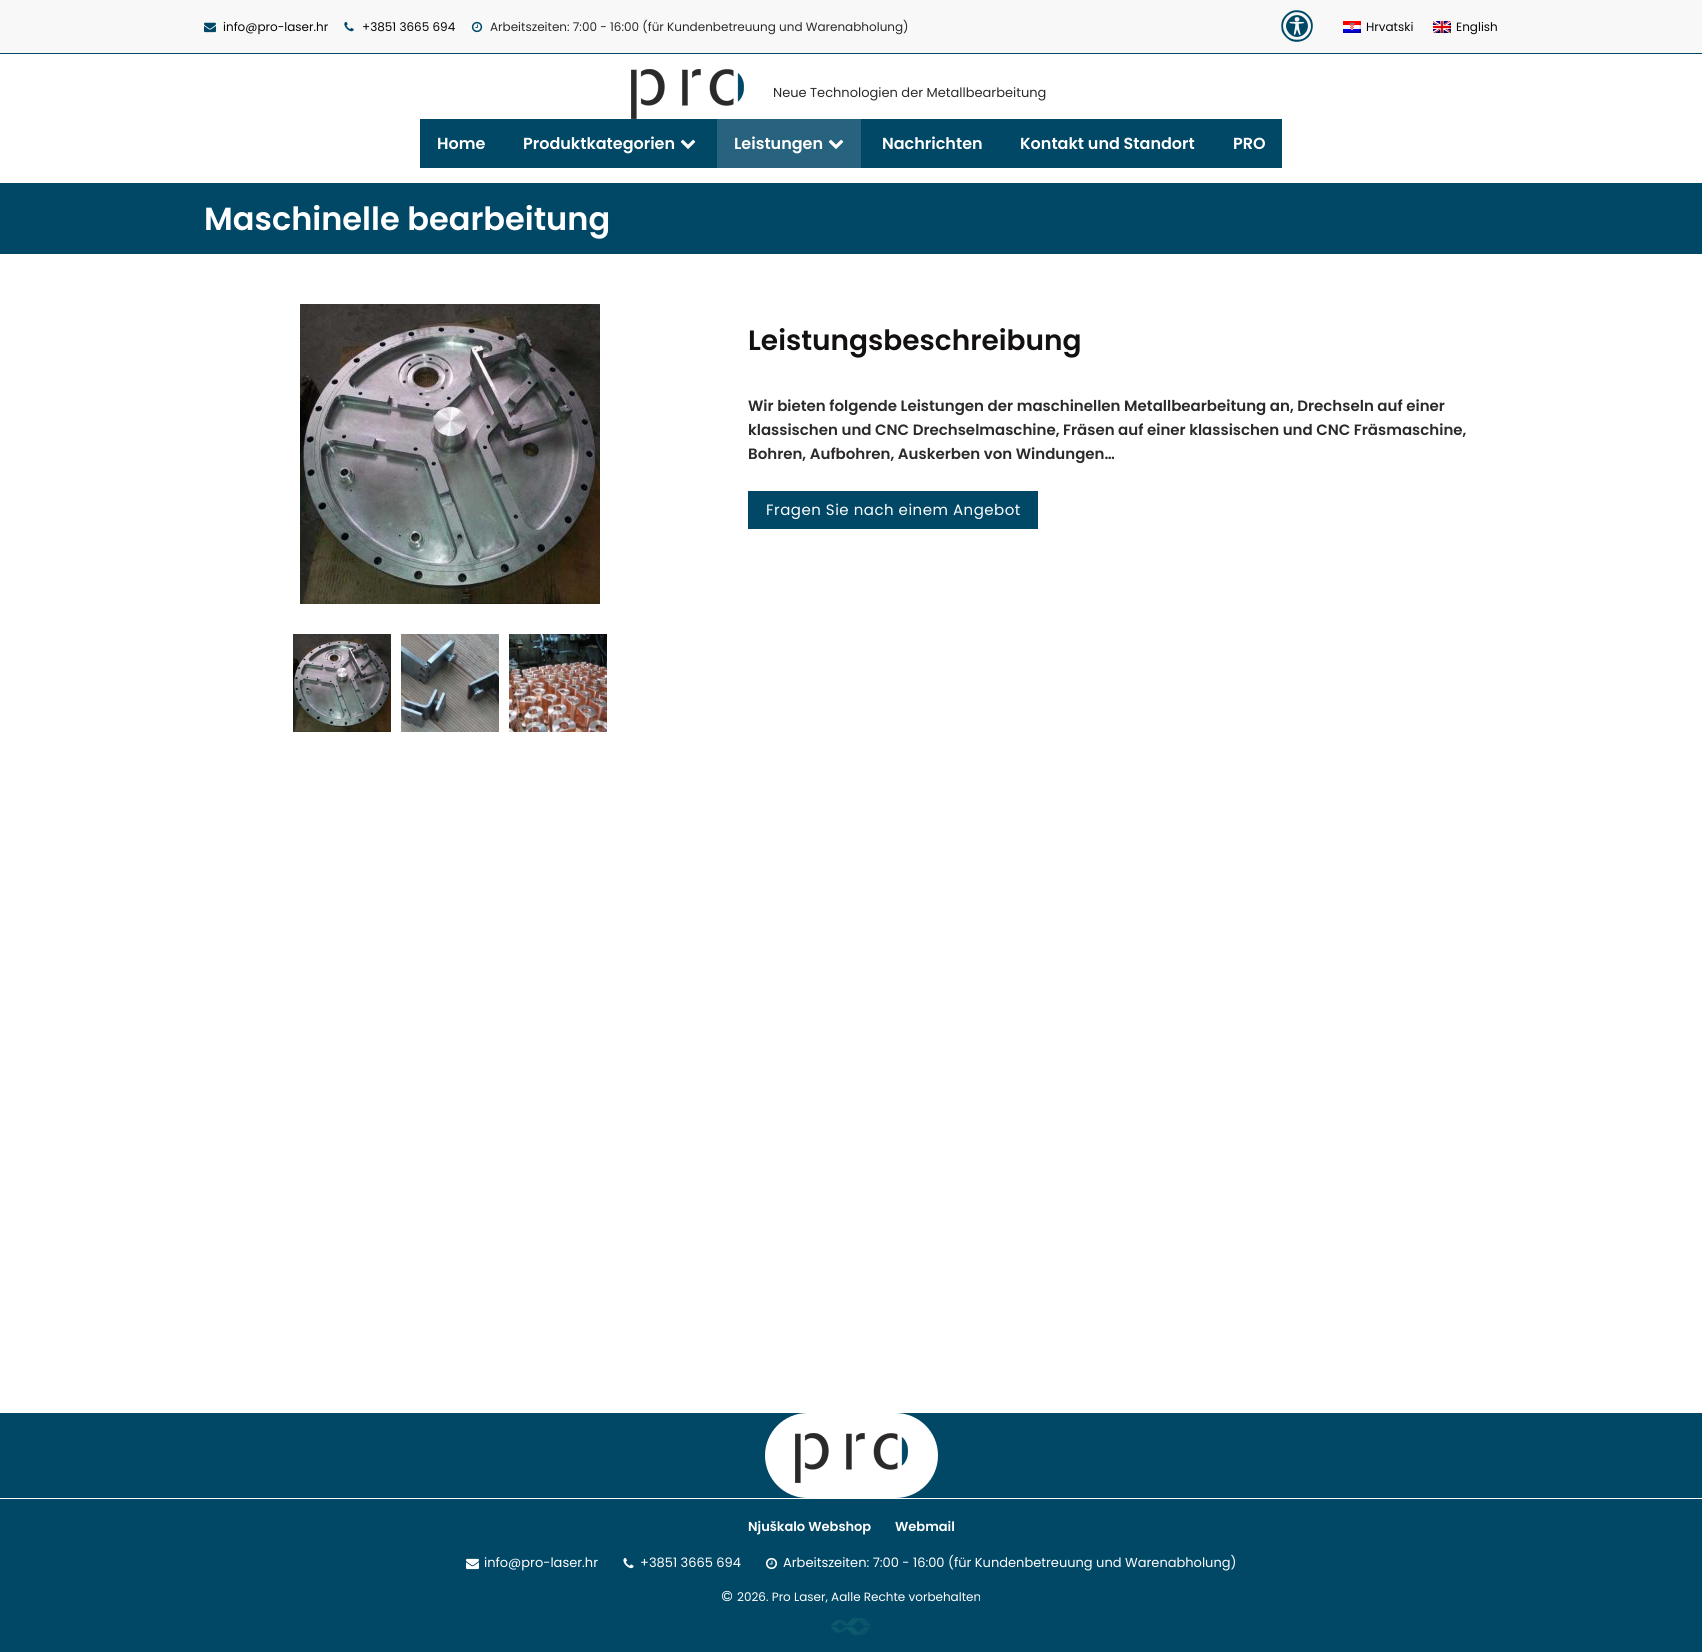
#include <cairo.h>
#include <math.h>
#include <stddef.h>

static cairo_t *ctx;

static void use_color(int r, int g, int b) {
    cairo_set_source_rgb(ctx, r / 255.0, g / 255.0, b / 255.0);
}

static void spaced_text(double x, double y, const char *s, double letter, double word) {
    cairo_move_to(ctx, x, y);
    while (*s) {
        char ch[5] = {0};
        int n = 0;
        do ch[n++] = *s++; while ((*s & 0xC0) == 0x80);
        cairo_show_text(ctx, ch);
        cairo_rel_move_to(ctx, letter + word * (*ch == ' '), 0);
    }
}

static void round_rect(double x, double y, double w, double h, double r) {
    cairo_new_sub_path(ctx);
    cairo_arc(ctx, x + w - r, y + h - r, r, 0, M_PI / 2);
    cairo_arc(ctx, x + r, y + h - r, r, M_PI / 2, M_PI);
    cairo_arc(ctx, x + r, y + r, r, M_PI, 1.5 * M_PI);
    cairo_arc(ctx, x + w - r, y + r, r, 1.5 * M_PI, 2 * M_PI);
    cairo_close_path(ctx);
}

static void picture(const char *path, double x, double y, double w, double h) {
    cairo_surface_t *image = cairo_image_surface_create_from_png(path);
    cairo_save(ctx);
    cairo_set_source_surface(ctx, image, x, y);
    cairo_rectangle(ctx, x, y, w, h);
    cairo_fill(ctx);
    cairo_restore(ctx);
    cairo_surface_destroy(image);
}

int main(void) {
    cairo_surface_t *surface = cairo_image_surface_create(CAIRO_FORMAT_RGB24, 1702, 1652);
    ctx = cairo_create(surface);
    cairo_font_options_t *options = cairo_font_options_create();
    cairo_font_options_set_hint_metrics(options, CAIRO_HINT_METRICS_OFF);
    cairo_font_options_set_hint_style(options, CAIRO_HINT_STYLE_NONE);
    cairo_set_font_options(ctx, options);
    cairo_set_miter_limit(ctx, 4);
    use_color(255, 255, 255);
    cairo_paint(ctx);
    use_color(248, 248, 248);
    cairo_rectangle(ctx, 0, 0, 1702, 53);
    cairo_fill(ctx);
    use_color(1, 72, 103);
    cairo_rectangle(ctx, 0, 53, 1702, 1);
    cairo_fill(ctx);
    picture("img1.png", 204, 22, 12, 11);
    cairo_select_font_face(ctx, "Poppins", CAIRO_FONT_SLANT_NORMAL, CAIRO_FONT_WEIGHT_NORMAL);
    cairo_set_font_size(ctx, 12);
    use_color(6, 6, 8);
    cairo_move_to(ctx, 223, 31);
    cairo_show_text(ctx, "info@pro-laser.hr");
    picture("img2.png", 344, 21, 10, 11);
    cairo_move_to(ctx, 362, 31);
    cairo_show_text(ctx, "+3851 3665 694");
    picture("img3.png", 471, 21, 12, 12);
    use_color(44, 41, 42);
    cairo_move_to(ctx, 490, 31);
    cairo_show_text(ctx, "Arbeitszeiten: 7:00 - 16:00 (für Kundenbetreuung und Warenabholung)");
    picture("img4.png", 1281, 10, 32, 32);
    picture("img5.png", 1343, 21, 18, 12);
    use_color(6, 6, 8);
    cairo_move_to(ctx, 1366, 31);
    cairo_show_text(ctx, "Hrvatski");
    picture("img6.png", 1433, 21, 18, 12);
    cairo_move_to(ctx, 1456, 31);
    cairo_show_text(ctx, "English");
    picture("img7.png", 631, 69, 113, 50);
    cairo_set_font_size(ctx, 13);
    use_color(44, 41, 42);
    cairo_move_to(ctx, 773, 97);
    cairo_show_text(ctx, "Neue Technologien der Metallbearbeitung");
    use_color(1, 72, 103);
    cairo_rectangle(ctx, 420, 119, 862, 49);
    cairo_fill(ctx);
    cairo_select_font_face(ctx, "Poppins SemiBold", CAIRO_FONT_SLANT_NORMAL, CAIRO_FONT_WEIGHT_NORMAL);
    cairo_set_font_size(ctx, 16);
    use_color(255, 255, 255);
    cairo_move_to(ctx, 437, 149);
    cairo_show_text(ctx, "Home");
    cairo_move_to(ctx, 523, 149);
    cairo_show_text(ctx, "Produktkategorien");
    picture("img8.png", 680, 139, 16, 10);
    use_color(39, 99, 126);
    cairo_rectangle(ctx, 717, 119, 144, 49);
    cairo_fill(ctx);
    use_color(255, 255, 255);
    cairo_move_to(ctx, 734, 149);
    cairo_show_text(ctx, "Leistungen");
    picture("img9.png", 828, 139, 16, 10);
    cairo_move_to(ctx, 882, 149);
    cairo_show_text(ctx, "Nachrichten");
    cairo_move_to(ctx, 1020, 149);
    cairo_show_text(ctx, "Kontakt und Standort");
    cairo_move_to(ctx, 1233, 149);
    cairo_show_text(ctx, "PRO");
    use_color(1, 72, 103);
    cairo_rectangle(ctx, 0, 183, 1702, 71);
    cairo_fill(ctx);
    cairo_set_font_size(ctx, 32);
    use_color(255, 255, 255);
    cairo_move_to(ctx, 204, 230);
    cairo_show_text(ctx, "Maschinelle bearbeitung");
    picture("img10.png", 300, 304, 300, 300);
    picture("img11.png", 293, 634, 98, 98);
    picture("img12.png", 401, 634, 98, 98);
    picture("img13.png", 509, 634, 98, 98);
    cairo_set_font_size(ctx, 28);
    use_color(19, 16, 17);
    cairo_move_to(ctx, 748, 350);
    cairo_show_text(ctx, "Leistungsbeschreibung");
    cairo_set_font_size(ctx, 15);
    use_color(44, 41, 42);
    cairo_move_to(ctx, 748, 411);
    cairo_show_text(ctx, "Wir bieten folgende Leistungen der maschinellen Metallbearbeitung an, Drechseln auf einer");
    cairo_move_to(ctx, 748, 435);
    cairo_show_text(ctx, "klassischen und CNC Drechselmaschine, Fräsen auf einer klassischen und CNC Fräsmaschine,");
    cairo_move_to(ctx, 748, 459);
    cairo_show_text(ctx, "Bohren, Aufbohren, Auskerben von Windungen…");
    use_color(1, 72, 103);
    cairo_rectangle(ctx, 748, 491, 290, 38);
    cairo_fill(ctx);
    cairo_select_font_face(ctx, "Poppins", CAIRO_FONT_SLANT_NORMAL, CAIRO_FONT_WEIGHT_NORMAL);
    use_color(255, 255, 255);
    spaced_text(766, 515, "Fragen Sie nach einem Angebot", 0.5, 0);
    use_color(1, 72, 103);
    cairo_rectangle(ctx, 0, 1413, 1702, 239);
    cairo_fill(ctx);
    use_color(255, 255, 255);
    round_rect(765, 1413, 173, 85, 42.5);
    cairo_fill(ctx);
    picture("img7.png", 795, 1433, 113, 50);
    cairo_rectangle(ctx, 0, 1498, 1702, 1);
    cairo_fill(ctx);
    cairo_select_font_face(ctx, "Poppins SemiBold", CAIRO_FONT_SLANT_NORMAL, CAIRO_FONT_WEIGHT_NORMAL);
    cairo_set_font_size(ctx, 13);
    cairo_move_to(ctx, 748, 1531);
    cairo_show_text(ctx, "Njuškalo Webshop");
    cairo_move_to(ctx, 895, 1531);
    cairo_show_text(ctx, "Webmail");
    picture("img14.png", 466, 1558, 13, 12);
    cairo_select_font_face(ctx, "Poppins", CAIRO_FONT_SLANT_NORMAL, CAIRO_FONT_WEIGHT_NORMAL);
    cairo_move_to(ctx, 484, 1567);
    cairo_show_text(ctx, "info@pro-laser.hr");
    picture("img15.png", 623, 1557, 11, 12);
    cairo_move_to(ctx, 640, 1567);
    cairo_show_text(ctx, "+3851 3665 694");
    picture("img16.png", 765, 1557, 13, 13);
    cairo_move_to(ctx, 783, 1567);
    cairo_show_text(ctx, "Arbeitszeiten: 7:00 - 16:00 (für Kundenbetreuung und Warenabholung)");
    picture("img17.png", 721, 1590, 12, 12);
    cairo_set_font_size(ctx, 12);
    cairo_move_to(ctx, 737, 1601);
    cairo_show_text(ctx, "2026. Pro Laser, Aalle Rechte vorbehalten");
    picture("img18.png", 831, 1618, 40, 17);
    cairo_surface_write_to_png(surface, "result.png");
    cairo_font_options_destroy(options);
    cairo_destroy(ctx);
    cairo_surface_destroy(surface);
    return 0;
}
